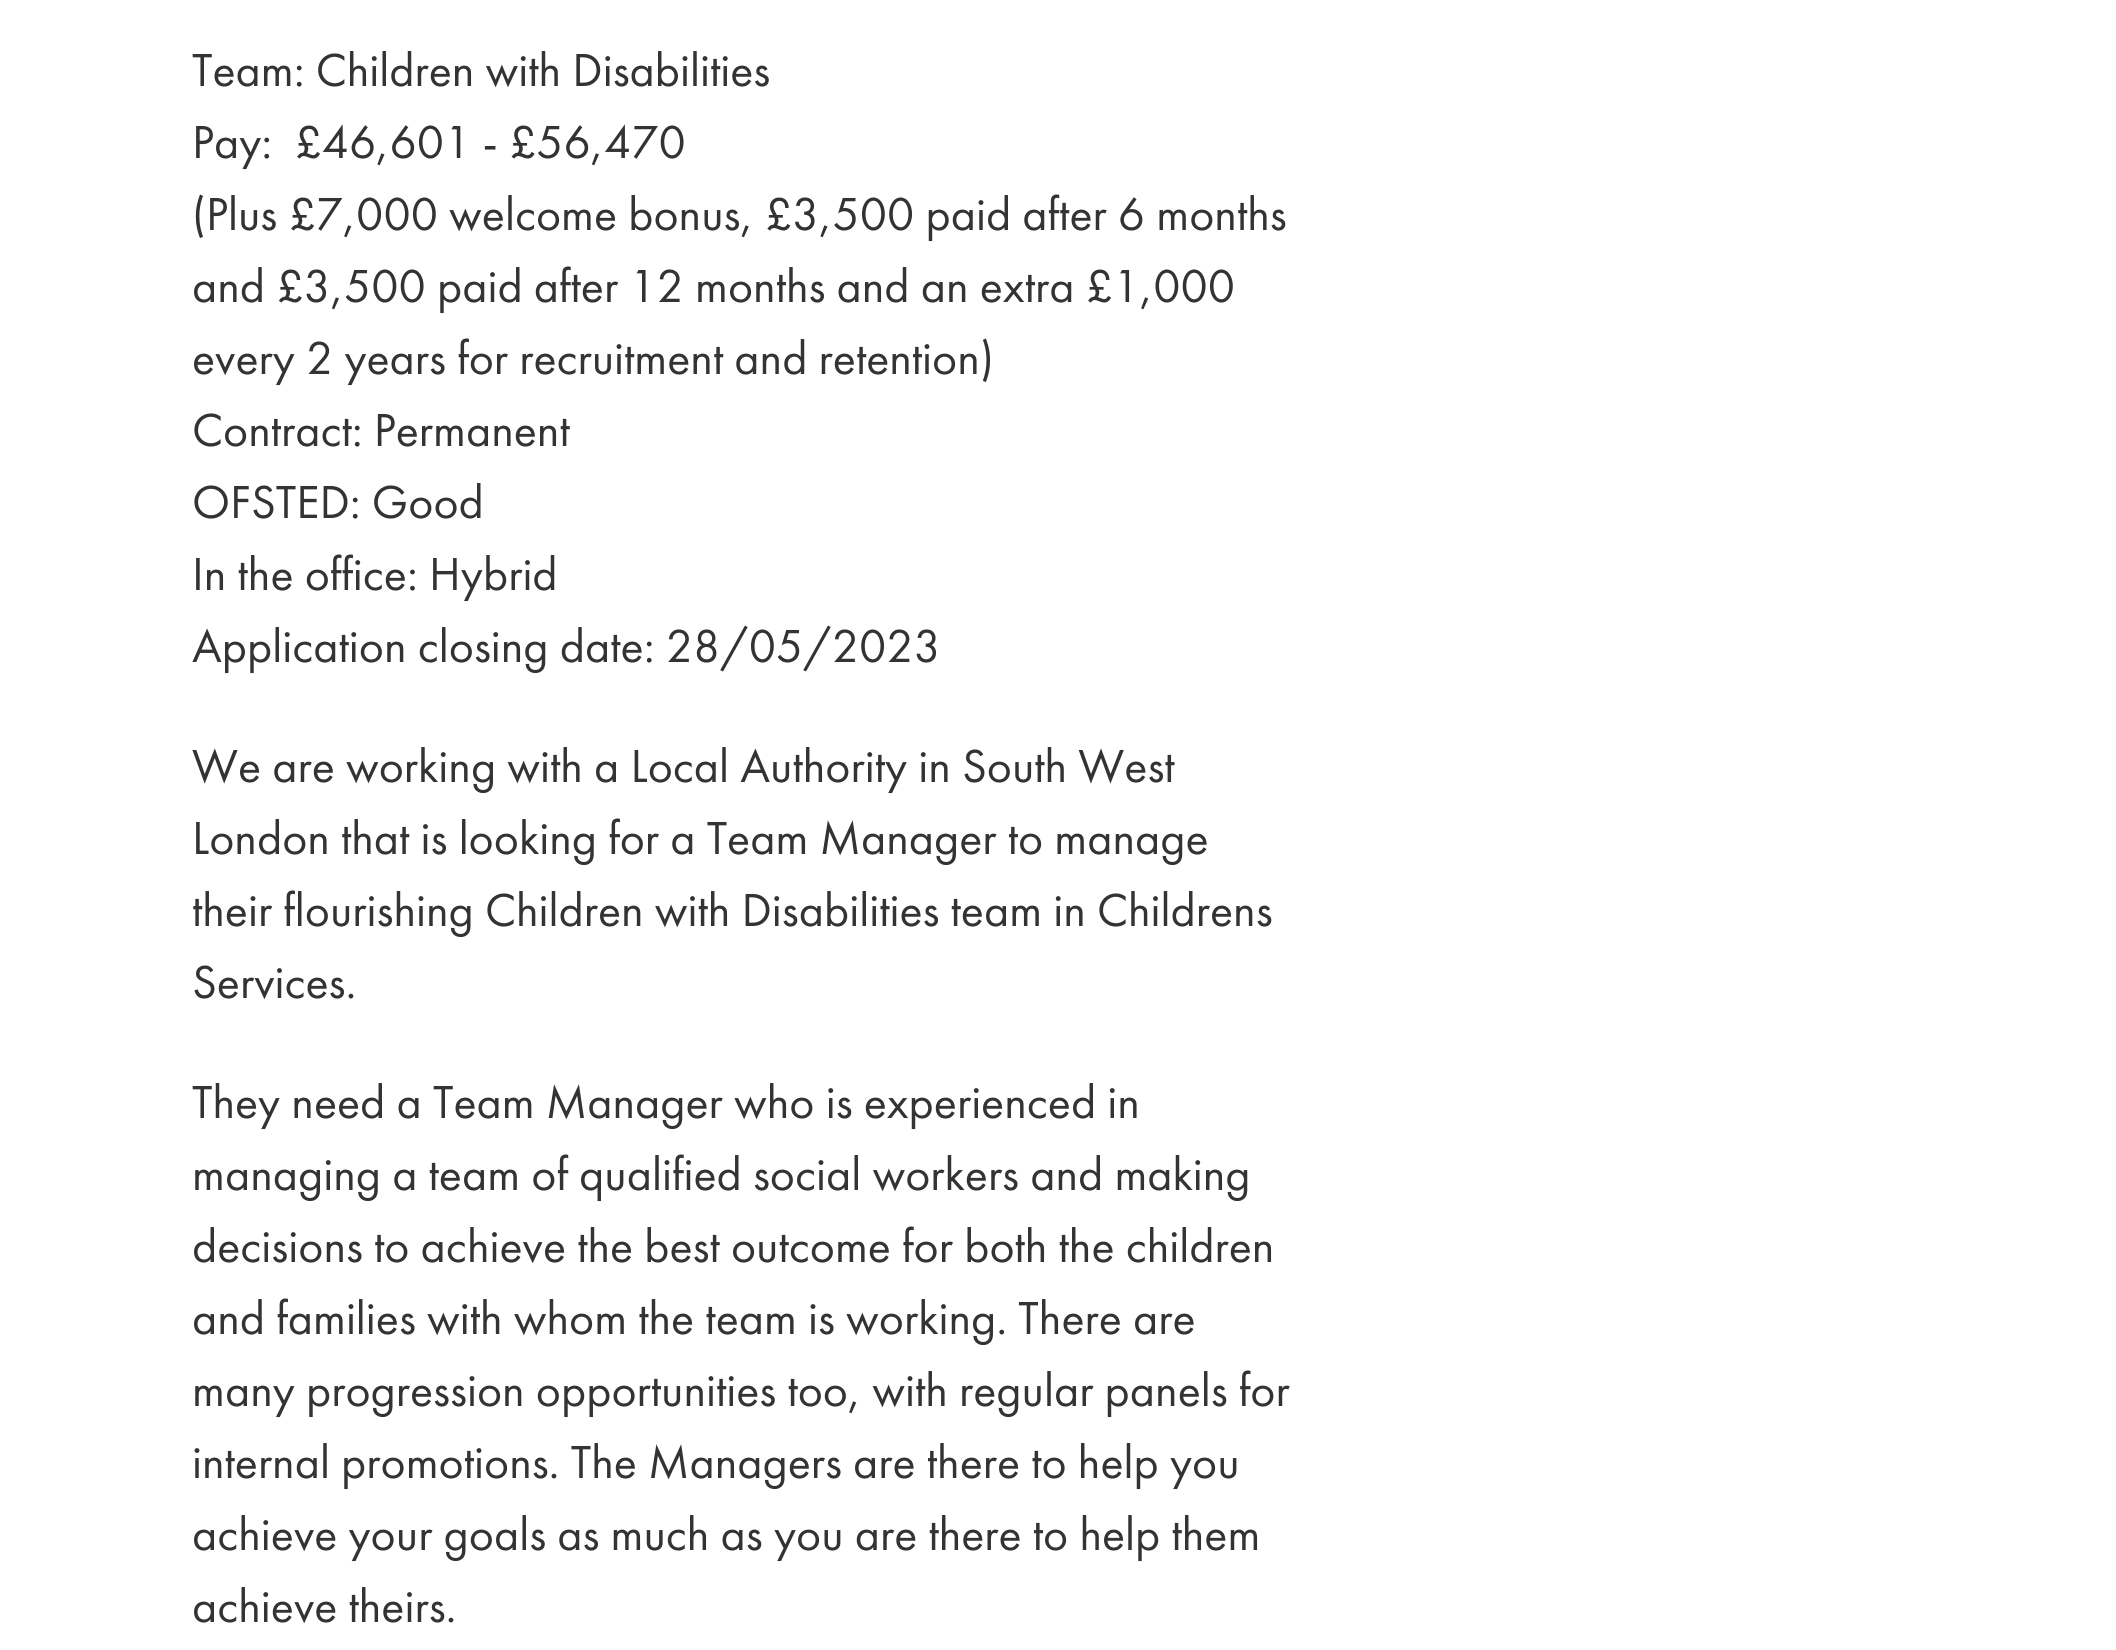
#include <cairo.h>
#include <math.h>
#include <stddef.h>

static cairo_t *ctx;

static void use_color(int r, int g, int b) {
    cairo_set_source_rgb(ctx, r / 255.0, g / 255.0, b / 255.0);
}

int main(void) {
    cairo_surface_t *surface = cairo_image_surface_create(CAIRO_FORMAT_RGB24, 2116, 1650);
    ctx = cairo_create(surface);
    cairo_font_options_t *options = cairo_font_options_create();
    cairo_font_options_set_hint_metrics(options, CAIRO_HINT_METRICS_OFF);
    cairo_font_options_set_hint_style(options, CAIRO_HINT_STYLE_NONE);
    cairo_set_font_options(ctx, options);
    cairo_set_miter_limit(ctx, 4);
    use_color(255, 255, 255);
    cairo_paint(ctx);
    cairo_select_font_face(ctx, "Futura PT", CAIRO_FONT_SLANT_NORMAL, CAIRO_FONT_WEIGHT_NORMAL);
    cairo_set_font_size(ctx, 48);
    use_color(51, 51, 51);
    cairo_move_to(ctx, 192, 86);
    cairo_show_text(ctx, "Team: Children with Disabilities");
    cairo_move_to(ctx, 192, 158);
    cairo_show_text(ctx, "Pay:  £46,601 - £56,470");
    cairo_move_to(ctx, 192, 230);
    cairo_show_text(ctx, "(Plus £7,000 welcome bonus, £3,500 paid after 6 months");
    cairo_move_to(ctx, 192, 302);
    cairo_show_text(ctx, "and £3,500 paid after 12 months and an extra £1,000");
    cairo_move_to(ctx, 192, 374);
    cairo_show_text(ctx, "every 2 years for recruitment and retention)");
    cairo_move_to(ctx, 192, 446);
    cairo_show_text(ctx, "Contract: Permanent");
    cairo_move_to(ctx, 192, 518);
    cairo_show_text(ctx, "OFSTED: Good");
    cairo_move_to(ctx, 192, 590);
    cairo_show_text(ctx, "In the office: Hybrid");
    cairo_move_to(ctx, 192, 662);
    cairo_show_text(ctx, "Application closing date: 28/05/2023");
    cairo_move_to(ctx, 192, 782);
    cairo_show_text(ctx, "We are working with a Local Authority in South West");
    cairo_move_to(ctx, 192, 854);
    cairo_show_text(ctx, "London that is looking for a Team Manager to manage");
    cairo_move_to(ctx, 192, 926);
    cairo_show_text(ctx, "their flourishing Children with Disabilities team in Childrens");
    cairo_move_to(ctx, 192, 998);
    cairo_show_text(ctx, "Services.");
    cairo_move_to(ctx, 192, 1118);
    cairo_show_text(ctx, "They need a Team Manager who is experienced in");
    cairo_move_to(ctx, 192, 1190);
    cairo_show_text(ctx, "managing a team of qualified social workers and making");
    cairo_move_to(ctx, 192, 1262);
    cairo_show_text(ctx, "decisions to achieve the best outcome for both the children");
    cairo_move_to(ctx, 192, 1334);
    cairo_show_text(ctx, "and families with whom the team is working. There are");
    cairo_move_to(ctx, 192, 1406);
    cairo_show_text(ctx, "many progression opportunities too, with regular panels for");
    cairo_move_to(ctx, 192, 1478);
    cairo_show_text(ctx, "internal promotions. The Managers are there to help you");
    cairo_move_to(ctx, 192, 1550);
    cairo_show_text(ctx, "achieve your goals as much as you are there to help them");
    cairo_move_to(ctx, 192, 1622);
    cairo_show_text(ctx, "achieve theirs.");
    cairo_surface_write_to_png(surface, "result.png");
    cairo_font_options_destroy(options);
    cairo_destroy(ctx);
    cairo_surface_destroy(surface);
    return 0;
}
